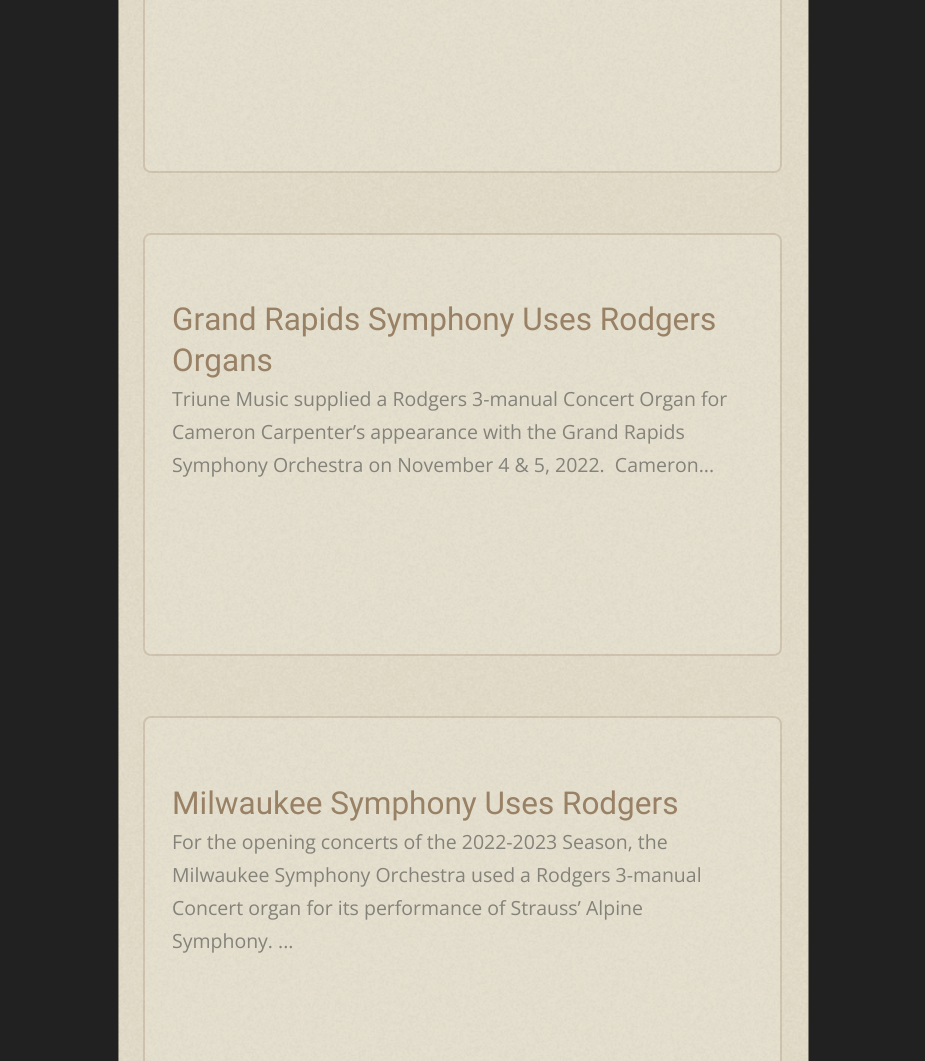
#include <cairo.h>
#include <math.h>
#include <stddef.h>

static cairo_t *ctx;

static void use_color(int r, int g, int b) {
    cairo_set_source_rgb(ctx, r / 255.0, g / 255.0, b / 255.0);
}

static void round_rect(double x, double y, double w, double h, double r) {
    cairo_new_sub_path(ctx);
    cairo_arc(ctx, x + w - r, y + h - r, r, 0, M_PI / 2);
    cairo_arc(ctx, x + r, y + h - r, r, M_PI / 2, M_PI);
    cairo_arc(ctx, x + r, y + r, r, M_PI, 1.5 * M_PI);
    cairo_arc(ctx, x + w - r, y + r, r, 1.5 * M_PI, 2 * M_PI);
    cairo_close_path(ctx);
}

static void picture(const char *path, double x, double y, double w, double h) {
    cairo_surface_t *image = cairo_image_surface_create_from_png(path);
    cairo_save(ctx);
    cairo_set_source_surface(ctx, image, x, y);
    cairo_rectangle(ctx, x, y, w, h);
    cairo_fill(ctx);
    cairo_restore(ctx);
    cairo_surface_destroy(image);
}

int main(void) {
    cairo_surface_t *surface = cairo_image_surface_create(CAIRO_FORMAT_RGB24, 925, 1061);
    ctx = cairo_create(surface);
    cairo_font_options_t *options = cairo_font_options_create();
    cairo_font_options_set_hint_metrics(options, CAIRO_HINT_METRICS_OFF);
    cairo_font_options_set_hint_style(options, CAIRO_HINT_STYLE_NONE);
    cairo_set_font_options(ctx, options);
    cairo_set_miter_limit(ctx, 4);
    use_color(33, 33, 33);
    cairo_paint(ctx);
    picture("img1.png", 118, 0, 691, 1061);
    cairo_set_source_rgba(ctx, 0, 0, 0, 0.08);
    cairo_rectangle(ctx, 119, 0, 690, 1061);
    cairo_fill(ctx);
    cairo_set_source_rgba(ctx, 1, 1, 1, 0.1);
    round_rect(143, -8, 639, 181, 8);
    cairo_fill(ctx);
    round_rect(144, -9, 637, 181, 7);
    cairo_set_source_rgba(ctx, 0.357, 0.173, 0.008, 0.15);
    cairo_stroke(ctx);
    cairo_set_source_rgba(ctx, 1, 1, 1, 0.1);
    round_rect(143, 233, 639, 423, 8);
    cairo_fill(ctx);
    round_rect(144, 234, 637, 421, 7);
    cairo_set_source_rgba(ctx, 0.357, 0.173, 0.008, 0.15);
    cairo_stroke(ctx);
    cairo_select_font_face(ctx, "Roboto", CAIRO_FONT_SLANT_NORMAL, CAIRO_FONT_WEIGHT_NORMAL);
    cairo_set_font_size(ctx, 31.5);
    use_color(153, 129, 102);
    cairo_move_to(ctx, 172, 330);
    cairo_show_text(ctx, "Grand Rapids Symphony Uses Rodgers");
    cairo_move_to(ctx, 172, 371);
    cairo_show_text(ctx, "Organs");
    cairo_select_font_face(ctx, "Open Sans", CAIRO_FONT_SLANT_NORMAL, CAIRO_FONT_WEIGHT_NORMAL);
    cairo_set_font_size(ctx, 19.5);
    use_color(132, 130, 121);
    cairo_move_to(ctx, 172, 406);
    cairo_show_text(ctx, "Triune Music supplied a Rodgers 3-manual Concert Organ for");
    cairo_move_to(ctx, 172, 439);
    cairo_show_text(ctx, "Cameron Carpenter’s appearance with the Grand Rapids");
    cairo_move_to(ctx, 172, 472);
    cairo_show_text(ctx, "Symphony Orchestra on November 4 & 5, 2022.  Cameron...");
    cairo_set_source_rgba(ctx, 1, 1, 1, 0.1);
    round_rect(143, 716, 639, 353, 8);
    cairo_fill(ctx);
    round_rect(144, 717, 637, 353, 7);
    cairo_set_source_rgba(ctx, 0.357, 0.173, 0.008, 0.15);
    cairo_stroke(ctx);
    cairo_select_font_face(ctx, "Roboto", CAIRO_FONT_SLANT_NORMAL, CAIRO_FONT_WEIGHT_NORMAL);
    cairo_set_font_size(ctx, 31.5);
    use_color(153, 129, 102);
    cairo_move_to(ctx, 172, 814);
    cairo_show_text(ctx, "Milwaukee Symphony Uses Rodgers");
    cairo_select_font_face(ctx, "Open Sans", CAIRO_FONT_SLANT_NORMAL, CAIRO_FONT_WEIGHT_NORMAL);
    cairo_set_font_size(ctx, 19.5);
    use_color(132, 130, 121);
    cairo_move_to(ctx, 172, 849);
    cairo_show_text(ctx, "For the opening concerts of the 2022-2023 Season, the");
    cairo_move_to(ctx, 172, 882);
    cairo_show_text(ctx, "Milwaukee Symphony Orchestra used a Rodgers 3-manual");
    cairo_move_to(ctx, 172, 915);
    cairo_show_text(ctx, "Concert organ for its performance of Strauss’ Alpine");
    cairo_move_to(ctx, 172, 948);
    cairo_show_text(ctx, "Symphony. ...");
    cairo_surface_write_to_png(surface, "result.png");
    cairo_font_options_destroy(options);
    cairo_destroy(ctx);
    cairo_surface_destroy(surface);
    return 0;
}
